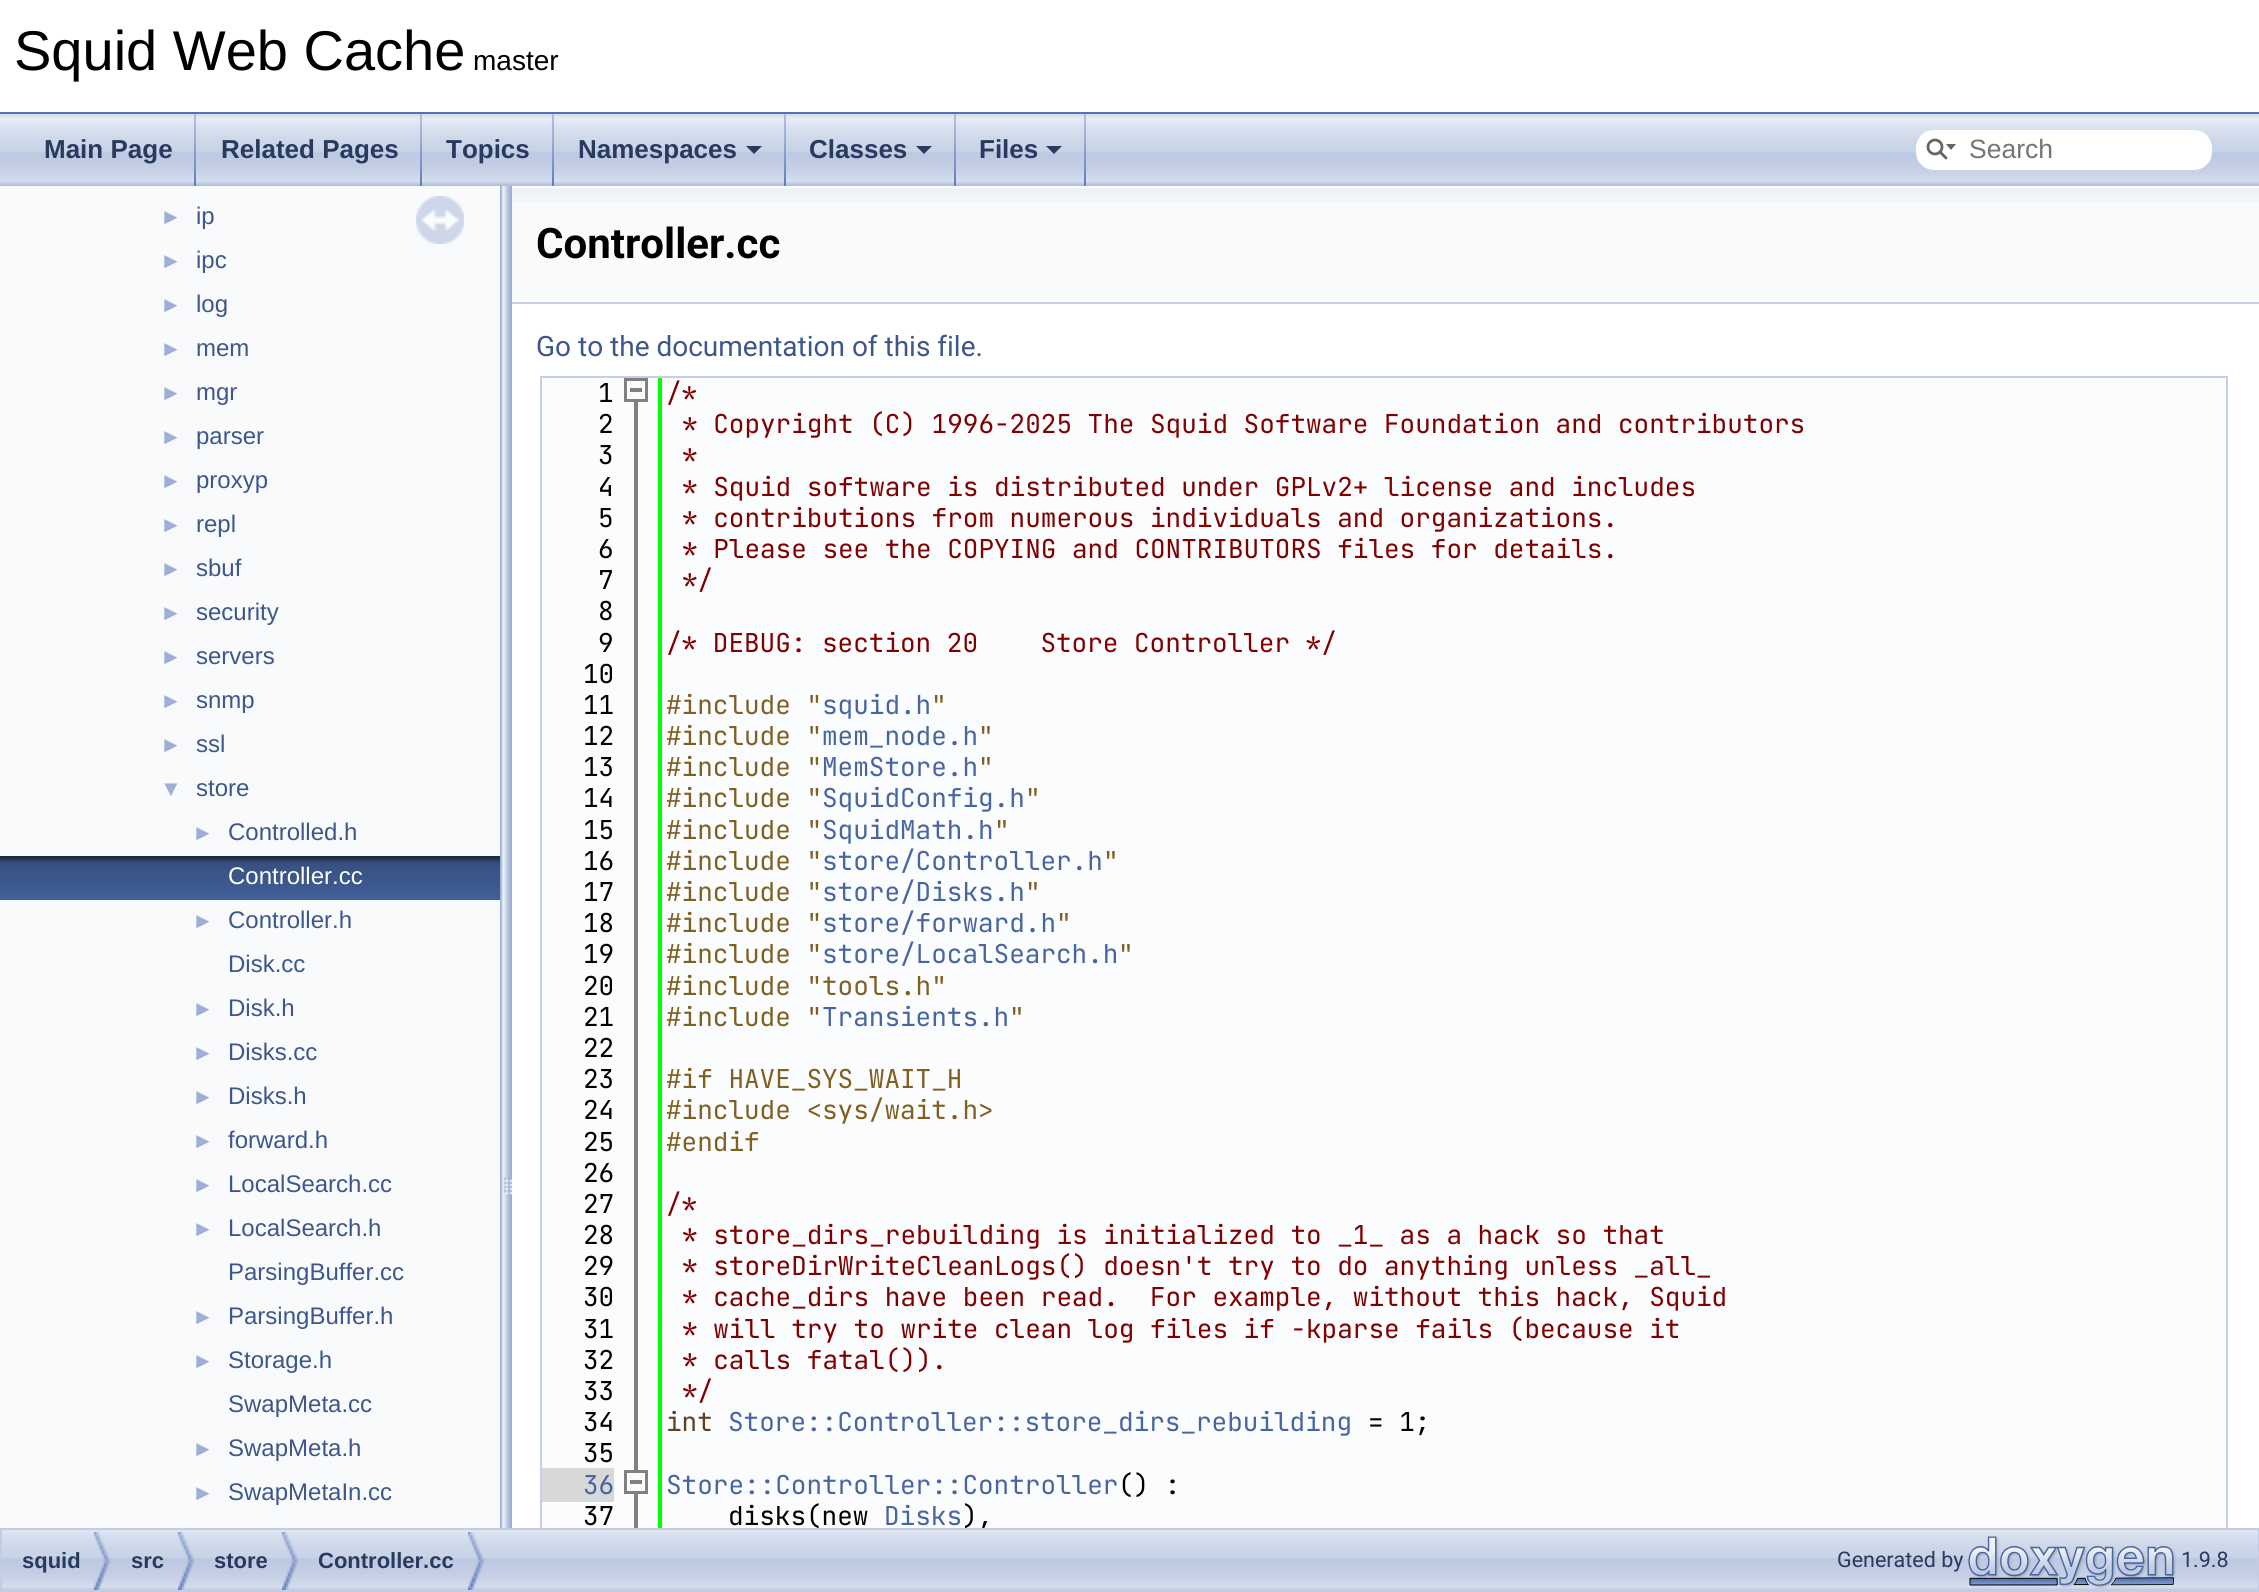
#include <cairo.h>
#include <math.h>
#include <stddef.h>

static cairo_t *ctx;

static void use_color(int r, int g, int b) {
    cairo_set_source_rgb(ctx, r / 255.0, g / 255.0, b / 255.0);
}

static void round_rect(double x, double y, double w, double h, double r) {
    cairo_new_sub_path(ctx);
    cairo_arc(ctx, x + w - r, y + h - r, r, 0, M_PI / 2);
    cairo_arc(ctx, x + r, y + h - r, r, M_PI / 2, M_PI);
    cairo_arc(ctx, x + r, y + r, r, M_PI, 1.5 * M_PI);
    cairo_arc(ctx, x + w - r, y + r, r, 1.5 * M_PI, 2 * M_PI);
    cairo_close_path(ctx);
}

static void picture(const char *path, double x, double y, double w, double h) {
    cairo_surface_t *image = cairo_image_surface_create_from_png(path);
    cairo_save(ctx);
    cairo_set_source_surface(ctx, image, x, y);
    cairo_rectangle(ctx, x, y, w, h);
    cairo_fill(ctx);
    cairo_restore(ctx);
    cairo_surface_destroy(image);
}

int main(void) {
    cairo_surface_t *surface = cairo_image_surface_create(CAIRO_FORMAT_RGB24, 2259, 1592);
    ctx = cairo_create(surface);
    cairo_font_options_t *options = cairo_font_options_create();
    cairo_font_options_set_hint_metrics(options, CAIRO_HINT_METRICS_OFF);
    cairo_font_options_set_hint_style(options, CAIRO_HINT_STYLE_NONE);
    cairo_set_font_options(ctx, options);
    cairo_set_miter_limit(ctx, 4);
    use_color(255, 255, 255);
    cairo_paint(ctx);
    use_color(83, 115, 180);
    cairo_rectangle(ctx, 0, 112, 2259, 2);
    cairo_fill(ctx);
    cairo_select_font_face(ctx, "Liberation Sans", CAIRO_FONT_SLANT_NORMAL, CAIRO_FONT_WEIGHT_NORMAL);
    cairo_set_font_size(ctx, 56);
    use_color(0, 0, 0);
    cairo_move_to(ctx, 14, 70);
    cairo_show_text(ctx, "Squid Web Cache");
    cairo_set_font_size(ctx, 28);
    cairo_move_to(ctx, 473, 70);
    cairo_show_text(ctx, "master");
    picture("img1.png", 0, 114, 2259, 72);
    picture("img2.png", 194, 114, 2, 72);
    cairo_select_font_face(ctx, "Liberation Sans", CAIRO_FONT_SLANT_NORMAL, CAIRO_FONT_WEIGHT_BOLD);
    cairo_set_font_size(ctx, 26);
    use_color(40, 58, 93);
    cairo_move_to(ctx, 44, 158);
    cairo_show_text(ctx, "Main Page");
    picture("img2.png", 420, 114, 2, 72);
    cairo_move_to(ctx, 221, 158);
    cairo_show_text(ctx, "Related Pages");
    picture("img2.png", 552, 114, 2, 72);
    cairo_move_to(ctx, 446, 158);
    cairo_show_text(ctx, "Topics");
    picture("img2.png", 784, 114, 2, 72);
    cairo_move_to(ctx, 578, 158);
    cairo_show_text(ctx, "Namespaces");
    cairo_new_path(ctx);
    cairo_move_to(ctx, 746, 146);
    cairo_line_to(ctx, 762, 146);
    cairo_line_to(ctx, 754, 154);
    cairo_close_path(ctx);
    cairo_fill(ctx);
    picture("img2.png", 954, 114, 2, 72);
    cairo_move_to(ctx, 809, 158);
    cairo_show_text(ctx, "Classes");
    cairo_new_path(ctx);
    cairo_move_to(ctx, 916, 146);
    cairo_line_to(ctx, 932, 146);
    cairo_line_to(ctx, 924, 154);
    cairo_close_path(ctx);
    cairo_fill(ctx);
    picture("img2.png", 1084, 114, 2, 72);
    cairo_move_to(ctx, 979, 158);
    cairo_show_text(ctx, "Files");
    cairo_new_path(ctx);
    cairo_move_to(ctx, 1046, 146);
    cairo_line_to(ctx, 1062, 146);
    cairo_line_to(ctx, 1054, 154);
    cairo_close_path(ctx);
    cairo_fill(ctx);
    use_color(255, 255, 255);
    round_rect(1916, 130, 296, 40, 18);
    cairo_fill(ctx);
    cairo_arc(ctx, 1935, 147, 7, 0, 2 * M_PI);
    use_color(101, 101, 101);
    cairo_set_line_width(ctx, 2.8);
    cairo_stroke(ctx);
    cairo_new_path(ctx);
    cairo_move_to(ctx, 1946, 144);
    cairo_line_to(ctx, 1951, 150);
    cairo_line_to(ctx, 1956, 144);
    cairo_close_path(ctx);
    cairo_fill(ctx);
    cairo_new_path(ctx);
    cairo_move_to(ctx, 1940, 152);
    cairo_line_to(ctx, 1946, 158);
    cairo_set_line_cap(ctx, CAIRO_LINE_CAP_ROUND);
    cairo_stroke(ctx);
    cairo_select_font_face(ctx, "Liberation Sans", CAIRO_FONT_SLANT_NORMAL, CAIRO_FONT_WEIGHT_NORMAL);
    cairo_set_font_size(ctx, 26.5);
    use_color(117, 117, 117);
    cairo_move_to(ctx, 1969, 158);
    cairo_show_text(ctx, "Search");
    use_color(249, 250, 252);
    cairo_rectangle(ctx, 0, 186, 500, 1342);
    cairo_fill(ctx);
    cairo_set_font_size(ctx, 22);
    use_color(156, 175, 212);
    cairo_move_to(ctx, 160, 224);
    cairo_show_text(ctx, "►");
    cairo_set_font_size(ctx, 24);
    use_color(61, 87, 140);
    cairo_move_to(ctx, 196, 224);
    cairo_show_text(ctx, "ip");
    cairo_set_font_size(ctx, 22);
    use_color(156, 175, 212);
    cairo_move_to(ctx, 160, 268);
    cairo_show_text(ctx, "►");
    cairo_set_font_size(ctx, 24);
    use_color(61, 87, 140);
    cairo_move_to(ctx, 196, 268);
    cairo_show_text(ctx, "ipc");
    cairo_set_font_size(ctx, 22);
    use_color(156, 175, 212);
    cairo_move_to(ctx, 160, 312);
    cairo_show_text(ctx, "►");
    cairo_set_font_size(ctx, 24);
    use_color(61, 87, 140);
    cairo_move_to(ctx, 196, 312);
    cairo_show_text(ctx, "log");
    cairo_set_font_size(ctx, 22);
    use_color(156, 175, 212);
    cairo_move_to(ctx, 160, 356);
    cairo_show_text(ctx, "►");
    cairo_set_font_size(ctx, 24);
    use_color(61, 87, 140);
    cairo_move_to(ctx, 196, 356);
    cairo_show_text(ctx, "mem");
    cairo_set_font_size(ctx, 22);
    use_color(156, 175, 212);
    cairo_move_to(ctx, 160, 400);
    cairo_show_text(ctx, "►");
    cairo_set_font_size(ctx, 24);
    use_color(61, 87, 140);
    cairo_move_to(ctx, 196, 400);
    cairo_show_text(ctx, "mgr");
    cairo_set_font_size(ctx, 22);
    use_color(156, 175, 212);
    cairo_move_to(ctx, 160, 444);
    cairo_show_text(ctx, "►");
    cairo_set_font_size(ctx, 24);
    use_color(61, 87, 140);
    cairo_move_to(ctx, 196, 444);
    cairo_show_text(ctx, "parser");
    cairo_set_font_size(ctx, 22);
    use_color(156, 175, 212);
    cairo_move_to(ctx, 160, 488);
    cairo_show_text(ctx, "►");
    cairo_set_font_size(ctx, 24);
    use_color(61, 87, 140);
    cairo_move_to(ctx, 196, 488);
    cairo_show_text(ctx, "proxyp");
    cairo_set_font_size(ctx, 22);
    use_color(156, 175, 212);
    cairo_move_to(ctx, 160, 532);
    cairo_show_text(ctx, "►");
    cairo_set_font_size(ctx, 24);
    use_color(61, 87, 140);
    cairo_move_to(ctx, 196, 532);
    cairo_show_text(ctx, "repl");
    cairo_set_font_size(ctx, 22);
    use_color(156, 175, 212);
    cairo_move_to(ctx, 160, 576);
    cairo_show_text(ctx, "►");
    cairo_set_font_size(ctx, 24);
    use_color(61, 87, 140);
    cairo_move_to(ctx, 196, 576);
    cairo_show_text(ctx, "sbuf");
    cairo_set_font_size(ctx, 22);
    use_color(156, 175, 212);
    cairo_move_to(ctx, 160, 620);
    cairo_show_text(ctx, "►");
    cairo_set_font_size(ctx, 24);
    use_color(61, 87, 140);
    cairo_move_to(ctx, 196, 620);
    cairo_show_text(ctx, "security");
    cairo_set_font_size(ctx, 22);
    use_color(156, 175, 212);
    cairo_move_to(ctx, 160, 664);
    cairo_show_text(ctx, "►");
    cairo_set_font_size(ctx, 24);
    use_color(61, 87, 140);
    cairo_move_to(ctx, 196, 664);
    cairo_show_text(ctx, "servers");
    cairo_set_font_size(ctx, 22);
    use_color(156, 175, 212);
    cairo_move_to(ctx, 160, 708);
    cairo_show_text(ctx, "►");
    cairo_set_font_size(ctx, 24);
    use_color(61, 87, 140);
    cairo_move_to(ctx, 196, 708);
    cairo_show_text(ctx, "snmp");
    cairo_set_font_size(ctx, 22);
    use_color(156, 175, 212);
    cairo_move_to(ctx, 160, 752);
    cairo_show_text(ctx, "►");
    cairo_set_font_size(ctx, 24);
    use_color(61, 87, 140);
    cairo_move_to(ctx, 196, 752);
    cairo_show_text(ctx, "ssl");
    cairo_set_font_size(ctx, 22);
    use_color(156, 175, 212);
    cairo_move_to(ctx, 160, 796);
    cairo_show_text(ctx, "▼");
    cairo_set_font_size(ctx, 24);
    use_color(61, 87, 140);
    cairo_move_to(ctx, 196, 796);
    cairo_show_text(ctx, "store");
    cairo_set_font_size(ctx, 22);
    use_color(156, 175, 212);
    cairo_move_to(ctx, 192, 840);
    cairo_show_text(ctx, "►");
    cairo_set_font_size(ctx, 24);
    use_color(61, 87, 140);
    cairo_move_to(ctx, 228, 840);
    cairo_show_text(ctx, "Controlled.h");
    picture("img3.png", 0, 856, 500, 44);
    use_color(255, 255, 255);
    cairo_move_to(ctx, 228, 884);
    cairo_show_text(ctx, "Controller.cc");
    cairo_set_font_size(ctx, 22);
    use_color(156, 175, 212);
    cairo_move_to(ctx, 192, 928);
    cairo_show_text(ctx, "►");
    cairo_set_font_size(ctx, 24);
    use_color(61, 87, 140);
    cairo_move_to(ctx, 228, 928);
    cairo_show_text(ctx, "Controller.h");
    cairo_move_to(ctx, 228, 972);
    cairo_show_text(ctx, "Disk.cc");
    cairo_set_font_size(ctx, 22);
    use_color(156, 175, 212);
    cairo_move_to(ctx, 192, 1016);
    cairo_show_text(ctx, "►");
    cairo_set_font_size(ctx, 24);
    use_color(61, 87, 140);
    cairo_move_to(ctx, 228, 1016);
    cairo_show_text(ctx, "Disk.h");
    cairo_set_font_size(ctx, 22);
    use_color(156, 175, 212);
    cairo_move_to(ctx, 192, 1060);
    cairo_show_text(ctx, "►");
    cairo_set_font_size(ctx, 24);
    use_color(61, 87, 140);
    cairo_move_to(ctx, 228, 1060);
    cairo_show_text(ctx, "Disks.cc");
    cairo_set_font_size(ctx, 22);
    use_color(156, 175, 212);
    cairo_move_to(ctx, 192, 1104);
    cairo_show_text(ctx, "►");
    cairo_set_font_size(ctx, 24);
    use_color(61, 87, 140);
    cairo_move_to(ctx, 228, 1104);
    cairo_show_text(ctx, "Disks.h");
    cairo_set_font_size(ctx, 22);
    use_color(156, 175, 212);
    cairo_move_to(ctx, 192, 1148);
    cairo_show_text(ctx, "►");
    cairo_set_font_size(ctx, 24);
    use_color(61, 87, 140);
    cairo_move_to(ctx, 228, 1148);
    cairo_show_text(ctx, "forward.h");
    cairo_set_font_size(ctx, 22);
    use_color(156, 175, 212);
    cairo_move_to(ctx, 192, 1192);
    cairo_show_text(ctx, "►");
    cairo_set_font_size(ctx, 24);
    use_color(61, 87, 140);
    cairo_move_to(ctx, 228, 1192);
    cairo_show_text(ctx, "LocalSearch.cc");
    cairo_set_font_size(ctx, 22);
    use_color(156, 175, 212);
    cairo_move_to(ctx, 192, 1236);
    cairo_show_text(ctx, "►");
    cairo_set_font_size(ctx, 24);
    use_color(61, 87, 140);
    cairo_move_to(ctx, 228, 1236);
    cairo_show_text(ctx, "LocalSearch.h");
    cairo_move_to(ctx, 228, 1280);
    cairo_show_text(ctx, "ParsingBuffer.cc");
    cairo_set_font_size(ctx, 22);
    use_color(156, 175, 212);
    cairo_move_to(ctx, 192, 1324);
    cairo_show_text(ctx, "►");
    cairo_set_font_size(ctx, 24);
    use_color(61, 87, 140);
    cairo_move_to(ctx, 228, 1324);
    cairo_show_text(ctx, "ParsingBuffer.h");
    cairo_set_font_size(ctx, 22);
    use_color(156, 175, 212);
    cairo_move_to(ctx, 192, 1368);
    cairo_show_text(ctx, "►");
    cairo_set_font_size(ctx, 24);
    use_color(61, 87, 140);
    cairo_move_to(ctx, 228, 1368);
    cairo_show_text(ctx, "Storage.h");
    cairo_move_to(ctx, 228, 1412);
    cairo_show_text(ctx, "SwapMeta.cc");
    cairo_set_font_size(ctx, 22);
    use_color(156, 175, 212);
    cairo_move_to(ctx, 192, 1456);
    cairo_show_text(ctx, "►");
    cairo_set_font_size(ctx, 24);
    use_color(61, 87, 140);
    cairo_move_to(ctx, 228, 1456);
    cairo_show_text(ctx, "SwapMeta.h");
    cairo_set_font_size(ctx, 22);
    use_color(156, 175, 212);
    cairo_move_to(ctx, 192, 1500);
    cairo_show_text(ctx, "►");
    cairo_set_font_size(ctx, 24);
    use_color(61, 87, 140);
    cairo_move_to(ctx, 228, 1500);
    cairo_show_text(ctx, "SwapMetaIn.cc");
    picture("img4.png", 416, 196, 48, 48);
    picture("img5.png", 500, 186, 12, 1342);
    use_color(249, 250, 252);
    cairo_rectangle(ctx, 512, 202, 1747, 100);
    cairo_fill(ctx);
    picture("img6.png", 512, 186, 1747, 16);
    use_color(196, 207, 229);
    cairo_rectangle(ctx, 512, 302, 1747, 2);
    cairo_fill(ctx);
    cairo_select_font_face(ctx, "Roboto", CAIRO_FONT_SLANT_NORMAL, CAIRO_FONT_WEIGHT_BOLD);
    cairo_set_font_size(ctx, 42);
    use_color(0, 0, 0);
    cairo_move_to(ctx, 536, 258);
    cairo_show_text(ctx, "Controller.cc");
    cairo_select_font_face(ctx, "Roboto", CAIRO_FONT_SLANT_NORMAL, CAIRO_FONT_WEIGHT_NORMAL);
    cairo_set_font_size(ctx, 28);
    use_color(61, 87, 140);
    cairo_move_to(ctx, 536, 356);
    cairo_show_text(ctx, "Go to the documentation of this file.");
    use_color(251, 252, 253);
    cairo_rectangle(ctx, 542, 378, 1684, 1150);
    cairo_fill(ctx);
    cairo_rectangle(ctx, 541, 377, 1686, 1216);
    use_color(196, 207, 229);
    cairo_set_line_width(ctx, 2);
    cairo_set_line_cap(ctx, CAIRO_LINE_CAP_BUTT);
    cairo_stroke(ctx);
    use_color(128, 128, 128);
    cairo_rectangle(ctx, 634, 402, 4, 1068);
    cairo_fill(ctx);
    use_color(0, 255, 0);
    cairo_rectangle(ctx, 658, 378, 4, 1150);
    cairo_fill(ctx);
    cairo_select_font_face(ctx, "JetBrains Mono", CAIRO_FONT_SLANT_NORMAL, CAIRO_FONT_WEIGHT_NORMAL);
    cairo_set_font_size(ctx, 26);
    use_color(0, 0, 0);
    cairo_move_to(ctx, 598, 402);
    cairo_show_text(ctx, "1");
    use_color(128, 128, 128);
    cairo_rectangle(ctx, 624, 378, 24, 24);
    cairo_fill(ctx);
    use_color(252, 252, 252);
    cairo_rectangle(ctx, 627, 381, 18, 18);
    cairo_fill(ctx);
    use_color(128, 128, 128);
    cairo_rectangle(ctx, 630, 388, 12, 4);
    cairo_fill(ctx);
    use_color(128, 0, 0);
    cairo_move_to(ctx, 666, 402);
    cairo_show_text(ctx, "/*");
    use_color(0, 0, 0);
    cairo_move_to(ctx, 598, 433);
    cairo_show_text(ctx, "2");
    use_color(128, 0, 0);
    cairo_move_to(ctx, 682, 433);
    cairo_show_text(ctx, "* Copyright (C) 1996-2025 The Squid Software Foundation and contributors");
    use_color(0, 0, 0);
    cairo_move_to(ctx, 598, 464);
    cairo_show_text(ctx, "3");
    use_color(128, 0, 0);
    cairo_move_to(ctx, 682, 464);
    cairo_show_text(ctx, "*");
    use_color(0, 0, 0);
    cairo_move_to(ctx, 598, 496);
    cairo_show_text(ctx, "4");
    use_color(128, 0, 0);
    cairo_move_to(ctx, 682, 496);
    cairo_show_text(ctx, "* Squid software is distributed under GPLv2+ license and includes");
    use_color(0, 0, 0);
    cairo_move_to(ctx, 598, 527);
    cairo_show_text(ctx, "5");
    use_color(128, 0, 0);
    cairo_move_to(ctx, 682, 527);
    cairo_show_text(ctx, "* contributions from numerous individuals and organizations.");
    use_color(0, 0, 0);
    cairo_move_to(ctx, 598, 558);
    cairo_show_text(ctx, "6");
    use_color(128, 0, 0);
    cairo_move_to(ctx, 682, 558);
    cairo_show_text(ctx, "* Please see the COPYING and CONTRIBUTORS files for details.");
    use_color(0, 0, 0);
    cairo_move_to(ctx, 598, 589);
    cairo_show_text(ctx, "7");
    use_color(128, 0, 0);
    cairo_move_to(ctx, 682, 589);
    cairo_show_text(ctx, "*/");
    use_color(0, 0, 0);
    cairo_move_to(ctx, 598, 620);
    cairo_show_text(ctx, "8");
    cairo_move_to(ctx, 598, 652);
    cairo_show_text(ctx, "9");
    use_color(128, 0, 0);
    cairo_move_to(ctx, 666, 652);
    cairo_show_text(ctx, "/* DEBUG: section 20    Store Controller */");
    use_color(0, 0, 0);
    cairo_move_to(ctx, 583, 683);
    cairo_show_text(ctx, "10");
    cairo_move_to(ctx, 583, 714);
    cairo_show_text(ctx, "11");
    use_color(128, 96, 32);
    cairo_move_to(ctx, 666, 714);
    cairo_show_text(ctx, "#include \"");
    use_color(70, 101, 162);
    cairo_move_to(ctx, 822, 714);
    cairo_show_text(ctx, "squid.h");
    use_color(128, 96, 32);
    cairo_move_to(ctx, 931, 714);
    cairo_show_text(ctx, "\"");
    use_color(0, 0, 0);
    cairo_move_to(ctx, 583, 745);
    cairo_show_text(ctx, "12");
    use_color(128, 96, 32);
    cairo_move_to(ctx, 666, 745);
    cairo_show_text(ctx, "#include \"");
    use_color(70, 101, 162);
    cairo_move_to(ctx, 822, 745);
    cairo_show_text(ctx, "mem_node.h");
    use_color(128, 96, 32);
    cairo_move_to(ctx, 978, 745);
    cairo_show_text(ctx, "\"");
    use_color(0, 0, 0);
    cairo_move_to(ctx, 583, 776);
    cairo_show_text(ctx, "13");
    use_color(128, 96, 32);
    cairo_move_to(ctx, 666, 776);
    cairo_show_text(ctx, "#include \"");
    use_color(70, 101, 162);
    cairo_move_to(ctx, 822, 776);
    cairo_show_text(ctx, "MemStore.h");
    use_color(128, 96, 32);
    cairo_move_to(ctx, 978, 776);
    cairo_show_text(ctx, "\"");
    use_color(0, 0, 0);
    cairo_move_to(ctx, 583, 807);
    cairo_show_text(ctx, "14");
    use_color(128, 96, 32);
    cairo_move_to(ctx, 666, 807);
    cairo_show_text(ctx, "#include \"");
    use_color(70, 101, 162);
    cairo_move_to(ctx, 822, 807);
    cairo_show_text(ctx, "SquidConfig.h");
    use_color(128, 96, 32);
    cairo_move_to(ctx, 1025, 807);
    cairo_show_text(ctx, "\"");
    use_color(0, 0, 0);
    cairo_move_to(ctx, 583, 839);
    cairo_show_text(ctx, "15");
    use_color(128, 96, 32);
    cairo_move_to(ctx, 666, 839);
    cairo_show_text(ctx, "#include \"");
    use_color(70, 101, 162);
    cairo_move_to(ctx, 822, 839);
    cairo_show_text(ctx, "SquidMath.h");
    use_color(128, 96, 32);
    cairo_move_to(ctx, 994, 839);
    cairo_show_text(ctx, "\"");
    use_color(0, 0, 0);
    cairo_move_to(ctx, 583, 870);
    cairo_show_text(ctx, "16");
    use_color(128, 96, 32);
    cairo_move_to(ctx, 666, 870);
    cairo_show_text(ctx, "#include \"");
    use_color(70, 101, 162);
    cairo_move_to(ctx, 822, 870);
    cairo_show_text(ctx, "store/Controller.h");
    use_color(128, 96, 32);
    cairo_move_to(ctx, 1103, 870);
    cairo_show_text(ctx, "\"");
    use_color(0, 0, 0);
    cairo_move_to(ctx, 583, 901);
    cairo_show_text(ctx, "17");
    use_color(128, 96, 32);
    cairo_move_to(ctx, 666, 901);
    cairo_show_text(ctx, "#include \"");
    use_color(70, 101, 162);
    cairo_move_to(ctx, 822, 901);
    cairo_show_text(ctx, "store/Disks.h");
    use_color(128, 96, 32);
    cairo_move_to(ctx, 1025, 901);
    cairo_show_text(ctx, "\"");
    use_color(0, 0, 0);
    cairo_move_to(ctx, 583, 932);
    cairo_show_text(ctx, "18");
    use_color(128, 96, 32);
    cairo_move_to(ctx, 666, 932);
    cairo_show_text(ctx, "#include \"");
    use_color(70, 101, 162);
    cairo_move_to(ctx, 822, 932);
    cairo_show_text(ctx, "store/forward.h");
    use_color(128, 96, 32);
    cairo_move_to(ctx, 1056, 932);
    cairo_show_text(ctx, "\"");
    use_color(0, 0, 0);
    cairo_move_to(ctx, 583, 963);
    cairo_show_text(ctx, "19");
    use_color(128, 96, 32);
    cairo_move_to(ctx, 666, 963);
    cairo_show_text(ctx, "#include \"");
    use_color(70, 101, 162);
    cairo_move_to(ctx, 822, 963);
    cairo_show_text(ctx, "store/LocalSearch.h");
    use_color(128, 96, 32);
    cairo_move_to(ctx, 1118, 963);
    cairo_show_text(ctx, "\"");
    use_color(0, 0, 0);
    cairo_move_to(ctx, 583, 995);
    cairo_show_text(ctx, "20");
    use_color(128, 96, 32);
    cairo_move_to(ctx, 666, 995);
    cairo_show_text(ctx, "#include \"tools.h\"");
    use_color(0, 0, 0);
    cairo_move_to(ctx, 583, 1026);
    cairo_show_text(ctx, "21");
    use_color(128, 96, 32);
    cairo_move_to(ctx, 666, 1026);
    cairo_show_text(ctx, "#include \"");
    use_color(70, 101, 162);
    cairo_move_to(ctx, 822, 1026);
    cairo_show_text(ctx, "Transients.h");
    use_color(128, 96, 32);
    cairo_move_to(ctx, 1009, 1026);
    cairo_show_text(ctx, "\"");
    use_color(0, 0, 0);
    cairo_move_to(ctx, 583, 1057);
    cairo_show_text(ctx, "22");
    cairo_move_to(ctx, 583, 1088);
    cairo_show_text(ctx, "23");
    use_color(128, 96, 32);
    cairo_move_to(ctx, 666, 1088);
    cairo_show_text(ctx, "#if HAVE_SYS_WAIT_H");
    use_color(0, 0, 0);
    cairo_move_to(ctx, 583, 1119);
    cairo_show_text(ctx, "24");
    use_color(128, 96, 32);
    cairo_move_to(ctx, 666, 1119);
    cairo_show_text(ctx, "#include <sys/wait.h>");
    use_color(0, 0, 0);
    cairo_move_to(ctx, 583, 1151);
    cairo_show_text(ctx, "25");
    use_color(128, 96, 32);
    cairo_move_to(ctx, 666, 1151);
    cairo_show_text(ctx, "#endif");
    use_color(0, 0, 0);
    cairo_move_to(ctx, 583, 1182);
    cairo_show_text(ctx, "26");
    cairo_move_to(ctx, 583, 1213);
    cairo_show_text(ctx, "27");
    use_color(128, 0, 0);
    cairo_move_to(ctx, 666, 1213);
    cairo_show_text(ctx, "/*");
    use_color(0, 0, 0);
    cairo_move_to(ctx, 583, 1244);
    cairo_show_text(ctx, "28");
    use_color(128, 0, 0);
    cairo_move_to(ctx, 682, 1244);
    cairo_show_text(ctx, "* store_dirs_rebuilding is initialized to _1_ as a hack so that");
    use_color(0, 0, 0);
    cairo_move_to(ctx, 583, 1275);
    cairo_show_text(ctx, "29");
    use_color(128, 0, 0);
    cairo_move_to(ctx, 682, 1275);
    cairo_show_text(ctx, "* storeDirWriteCleanLogs() doesn't try to do anything unless _all_");
    use_color(0, 0, 0);
    cairo_move_to(ctx, 583, 1306);
    cairo_show_text(ctx, "30");
    use_color(128, 0, 0);
    cairo_move_to(ctx, 682, 1306);
    cairo_show_text(ctx, "* cache_dirs have been read.  For example, without this hack, Squid");
    use_color(0, 0, 0);
    cairo_move_to(ctx, 583, 1338);
    cairo_show_text(ctx, "31");
    use_color(128, 0, 0);
    cairo_move_to(ctx, 682, 1338);
    cairo_show_text(ctx, "* will try to write clean log files if -kparse fails (because it");
    use_color(0, 0, 0);
    cairo_move_to(ctx, 583, 1369);
    cairo_show_text(ctx, "32");
    use_color(128, 0, 0);
    cairo_move_to(ctx, 682, 1369);
    cairo_show_text(ctx, "* calls fatal()).");
    use_color(0, 0, 0);
    cairo_move_to(ctx, 583, 1400);
    cairo_show_text(ctx, "33");
    use_color(128, 0, 0);
    cairo_move_to(ctx, 682, 1400);
    cairo_show_text(ctx, "*/");
    use_color(0, 0, 0);
    cairo_move_to(ctx, 583, 1431);
    cairo_show_text(ctx, "34");
    use_color(96, 64, 32);
    cairo_move_to(ctx, 666, 1431);
    cairo_show_text(ctx, "int");
    use_color(70, 101, 162);
    cairo_move_to(ctx, 728, 1431);
    cairo_show_text(ctx, "Store::Controller::store_dirs_rebuilding");
    use_color(0, 0, 0);
    cairo_move_to(ctx, 1368, 1431);
    cairo_show_text(ctx, "= 1;");
    cairo_move_to(ctx, 583, 1462);
    cairo_show_text(ctx, "35");
    use_color(128, 128, 128);
    cairo_rectangle(ctx, 634, 1494, 4, 34);
    cairo_fill(ctx);
    use_color(216, 216, 216);
    cairo_rectangle(ctx, 542, 1468, 72, 34);
    cairo_fill(ctx);
    use_color(70, 101, 162);
    cairo_move_to(ctx, 583, 1494);
    cairo_show_text(ctx, "36");
    use_color(128, 128, 128);
    cairo_rectangle(ctx, 624, 1470, 24, 24);
    cairo_fill(ctx);
    use_color(252, 252, 252);
    cairo_rectangle(ctx, 627, 1473, 18, 18);
    cairo_fill(ctx);
    use_color(128, 128, 128);
    cairo_rectangle(ctx, 630, 1480, 12, 4);
    cairo_fill(ctx);
    use_color(70, 101, 162);
    cairo_move_to(ctx, 666, 1494);
    cairo_show_text(ctx, "Store::Controller::Controller");
    use_color(0, 0, 0);
    cairo_move_to(ctx, 1118, 1494);
    cairo_show_text(ctx, "() :");
    cairo_move_to(ctx, 583, 1525);
    cairo_show_text(ctx, "37");
    cairo_move_to(ctx, 728, 1525);
    cairo_show_text(ctx, "disks(new");
    use_color(70, 101, 162);
    cairo_move_to(ctx, 884, 1525);
    cairo_show_text(ctx, "Disks");
    use_color(0, 0, 0);
    cairo_move_to(ctx, 962, 1525);
    cairo_show_text(ctx, "),");
    picture("img7.png", 2, 1530, 2256, 60);
    cairo_rectangle(ctx, 1, 1529, 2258, 62);
    use_color(194, 205, 228);
    cairo_stroke(ctx);
    picture("img8.png", 94, 1532, 16, 58);
    cairo_select_font_face(ctx, "Liberation Sans", CAIRO_FONT_SLANT_NORMAL, CAIRO_FONT_WEIGHT_BOLD);
    cairo_set_font_size(ctx, 22);
    use_color(40, 58, 93);
    cairo_move_to(ctx, 22, 1568);
    cairo_show_text(ctx, "squid");
    picture("img8.png", 178, 1532, 16, 58);
    cairo_move_to(ctx, 131, 1568);
    cairo_show_text(ctx, "src");
    picture("img8.png", 282, 1532, 16, 58);
    cairo_move_to(ctx, 214, 1568);
    cairo_show_text(ctx, "store");
    picture("img8.png", 468, 1532, 16, 58);
    cairo_move_to(ctx, 318, 1568);
    cairo_show_text(ctx, "Controller.cc");
    cairo_select_font_face(ctx, "Roboto", CAIRO_FONT_SLANT_NORMAL, CAIRO_FONT_WEIGHT_NORMAL);
    cairo_set_font_size(ctx, 21.5);
    cairo_move_to(ctx, 1837, 1567);
    cairo_show_text(ctx, "Generated by");
    picture("img9.png", 1968, 1536, 208, 53);
    cairo_move_to(ctx, 2181, 1567);
    cairo_show_text(ctx, "1.9.8");
    cairo_surface_write_to_png(surface, "result.png");
    cairo_font_options_destroy(options);
    cairo_destroy(ctx);
    cairo_surface_destroy(surface);
    return 0;
}
